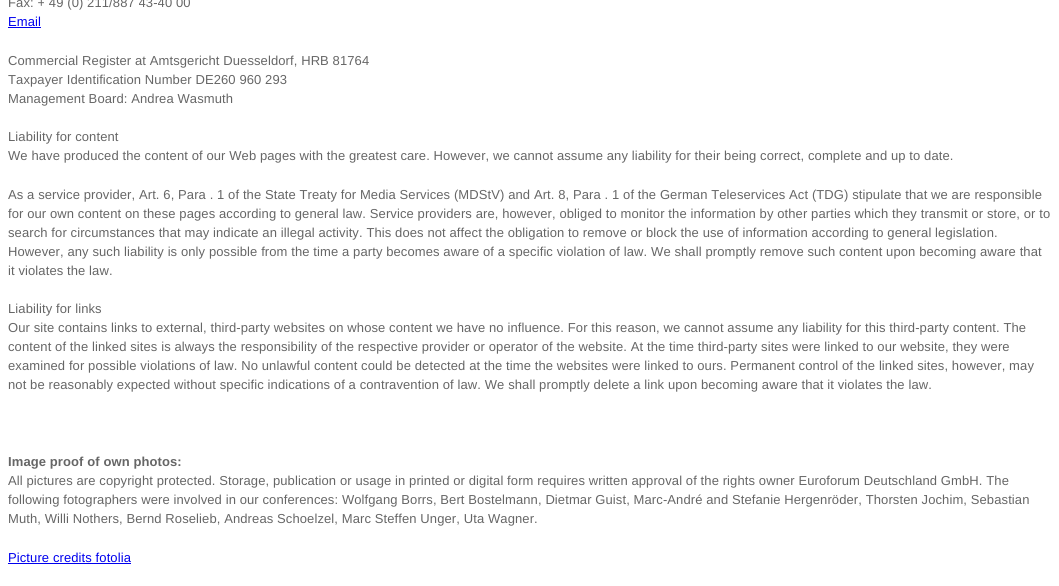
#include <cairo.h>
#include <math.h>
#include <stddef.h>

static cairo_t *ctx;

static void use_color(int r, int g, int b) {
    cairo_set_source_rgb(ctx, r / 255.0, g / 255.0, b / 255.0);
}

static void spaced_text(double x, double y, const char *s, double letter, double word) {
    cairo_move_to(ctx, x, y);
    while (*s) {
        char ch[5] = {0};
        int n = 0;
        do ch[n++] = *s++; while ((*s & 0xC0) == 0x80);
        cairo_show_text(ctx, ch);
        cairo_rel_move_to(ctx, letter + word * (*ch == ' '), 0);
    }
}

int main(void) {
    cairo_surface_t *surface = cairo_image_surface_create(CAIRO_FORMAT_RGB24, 1059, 586);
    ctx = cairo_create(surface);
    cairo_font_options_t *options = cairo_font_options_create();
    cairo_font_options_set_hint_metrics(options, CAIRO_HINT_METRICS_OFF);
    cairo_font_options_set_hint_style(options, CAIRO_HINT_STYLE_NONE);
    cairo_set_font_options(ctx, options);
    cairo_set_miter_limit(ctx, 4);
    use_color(255, 255, 255);
    cairo_paint(ctx);
    cairo_select_font_face(ctx, "Liberation Sans", CAIRO_FONT_SLANT_NORMAL, CAIRO_FONT_WEIGHT_NORMAL);
    cairo_set_font_size(ctx, 13);
    use_color(102, 102, 102);
    spaced_text(8, 7, "Fax: + 49 (0) 211/887 43-40 00", 0.1, 0);
    use_color(0, 0, 238);
    spaced_text(8, 26, "Email", 0.1, 0);
    cairo_rectangle(ctx, 8, 27, 33, 1);
    cairo_fill(ctx);
    use_color(102, 102, 102);
    spaced_text(8, 65, "Commercial Register at Amtsgericht Duesseldorf, HRB 81764", 0.1, 0);
    spaced_text(8, 84, "Taxpayer Identification Number DE260 960 293", 0.1, 0);
    spaced_text(8, 103, "Management Board: Andrea Wasmuth", 0.1, 0);
    spaced_text(8, 141, "Liability for content", 0.1, 0);
    spaced_text(8, 160, "We have produced the content of our Web pages with the greatest care. However, we cannot assume any liability for their being correct, complete and up to date.", 0.1, 0);
    spaced_text(8, 199, "As a service provider, Art. 6, Para . 1 of the State Treaty for Media Services (MDStV) and Art. 8, Para . 1 of the German Teleservices Act (TDG) stipulate that we are responsible", 0.1, 0);
    spaced_text(8, 218, "for our own content on these pages according to general law. Service providers are, however, obliged to monitor the information by other parties which they transmit or store, or to", 0.1, 0);
    spaced_text(8, 237, "search for circumstances that may indicate an illegal activity. This does not affect the obligation to remove or block the use of information according to general legislation.", 0.1, 0);
    spaced_text(8, 256, "However, any such liability is only possible from the time a party becomes aware of a specific violation of law. We shall promptly remove such content upon becoming aware that", 0.1, 0);
    spaced_text(8, 275, "it violates the law.", 0.1, 0);
    spaced_text(8, 313, "Liability for links", 0.1, 0);
    spaced_text(8, 332, "Our site contains links to external, third-party websites on whose content we have no influence. For this reason, we cannot assume any liability for this third-party content. The", 0.1, 0);
    spaced_text(8, 351, "content of the linked sites is always the responsibility of the respective provider or operator of the website. At the time third-party sites were linked to our website, they were", 0.1, 0);
    spaced_text(8, 370, "examined for possible violations of law. No unlawful content could be detected at the time the websites were linked to ours. Permanent control of the linked sites, however, may", 0.1, 0);
    spaced_text(8, 389, "not be reasonably expected without specific indications of a contravention of law. We shall promptly delete a link upon becoming aware that it violates the law.", 0.1, 0);
    cairo_select_font_face(ctx, "Liberation Sans", CAIRO_FONT_SLANT_NORMAL, CAIRO_FONT_WEIGHT_BOLD);
    spaced_text(8, 466, "Image proof of own photos:", 0.1, 0);
    cairo_select_font_face(ctx, "Liberation Sans", CAIRO_FONT_SLANT_NORMAL, CAIRO_FONT_WEIGHT_NORMAL);
    spaced_text(8, 485, "All pictures are copyright protected. Storage, publication or usage in printed or digital form requires written approval of the rights owner Euroforum Deutschland GmbH. The", 0.1, 0);
    spaced_text(8, 504, "following fotographers were involved in our conferences: Wolfgang Borrs, Bert Bostelmann, Dietmar Guist, Marc-André and Stefanie Hergenröder, Thorsten Jochim, Sebastian", 0.1, 0);
    spaced_text(8, 523, "Muth, Willi Nothers, Bernd Roselieb, Andreas Schoelzel, Marc Steffen Unger, Uta Wagner.", 0.1, 0);
    use_color(0, 0, 238);
    spaced_text(8, 562, "Picture credits fotolia", 0.1, 0);
    cairo_rectangle(ctx, 8, 563, 123, 1);
    cairo_fill(ctx);
    cairo_surface_write_to_png(surface, "result.png");
    cairo_font_options_destroy(options);
    cairo_destroy(ctx);
    cairo_surface_destroy(surface);
    return 0;
}
